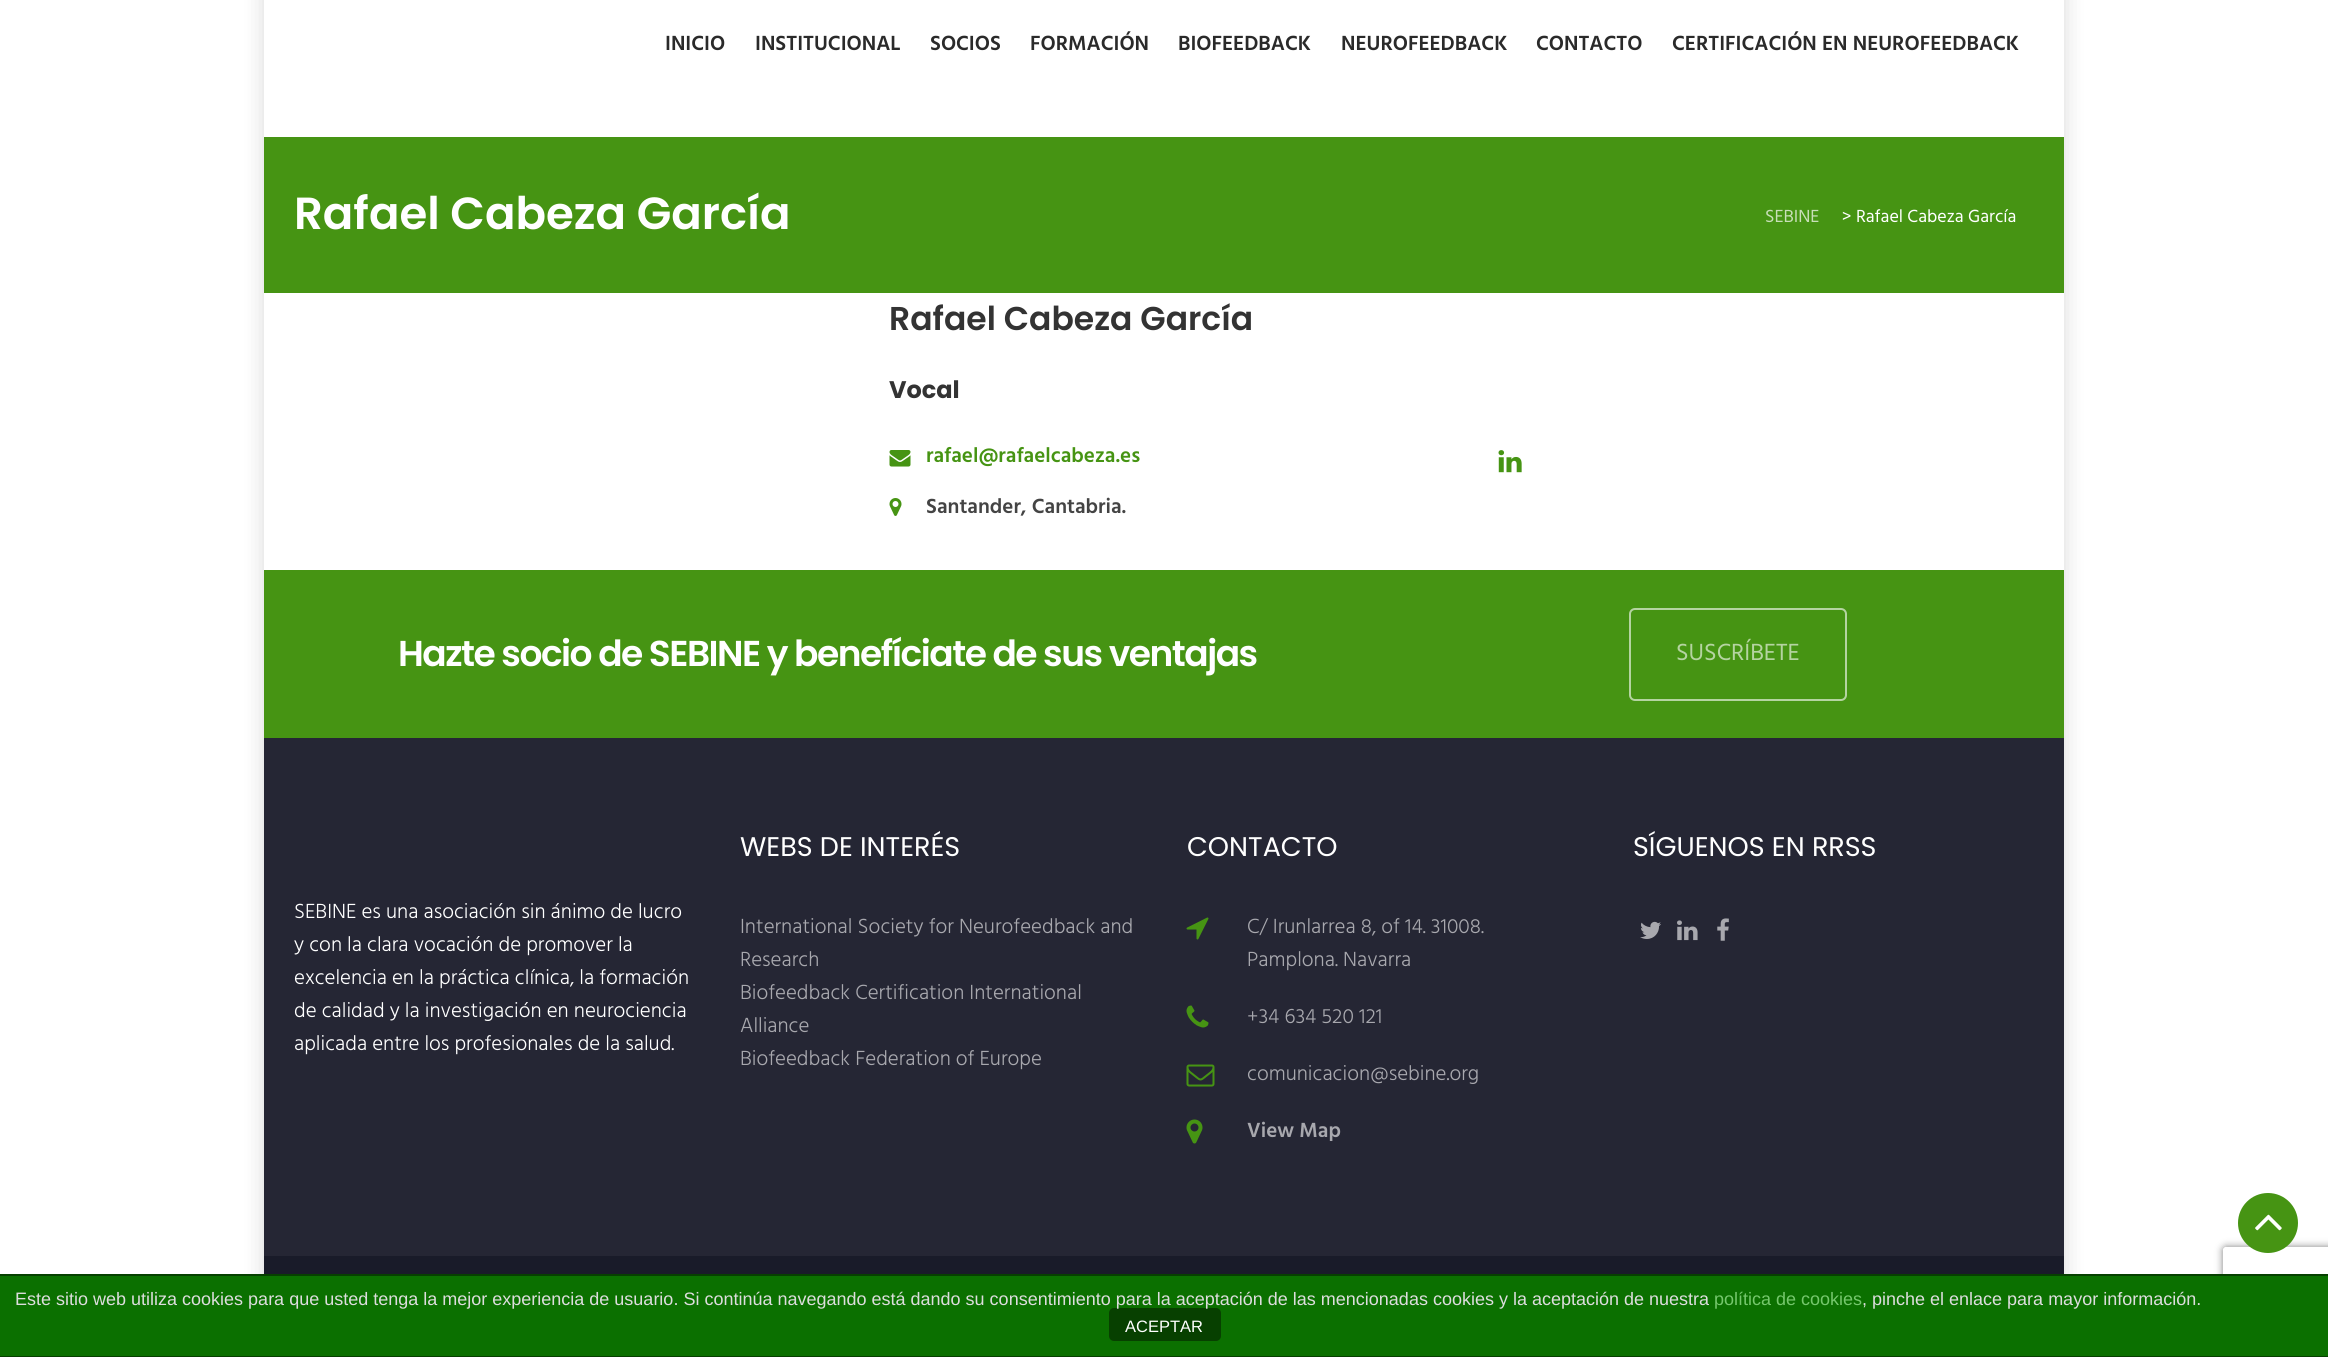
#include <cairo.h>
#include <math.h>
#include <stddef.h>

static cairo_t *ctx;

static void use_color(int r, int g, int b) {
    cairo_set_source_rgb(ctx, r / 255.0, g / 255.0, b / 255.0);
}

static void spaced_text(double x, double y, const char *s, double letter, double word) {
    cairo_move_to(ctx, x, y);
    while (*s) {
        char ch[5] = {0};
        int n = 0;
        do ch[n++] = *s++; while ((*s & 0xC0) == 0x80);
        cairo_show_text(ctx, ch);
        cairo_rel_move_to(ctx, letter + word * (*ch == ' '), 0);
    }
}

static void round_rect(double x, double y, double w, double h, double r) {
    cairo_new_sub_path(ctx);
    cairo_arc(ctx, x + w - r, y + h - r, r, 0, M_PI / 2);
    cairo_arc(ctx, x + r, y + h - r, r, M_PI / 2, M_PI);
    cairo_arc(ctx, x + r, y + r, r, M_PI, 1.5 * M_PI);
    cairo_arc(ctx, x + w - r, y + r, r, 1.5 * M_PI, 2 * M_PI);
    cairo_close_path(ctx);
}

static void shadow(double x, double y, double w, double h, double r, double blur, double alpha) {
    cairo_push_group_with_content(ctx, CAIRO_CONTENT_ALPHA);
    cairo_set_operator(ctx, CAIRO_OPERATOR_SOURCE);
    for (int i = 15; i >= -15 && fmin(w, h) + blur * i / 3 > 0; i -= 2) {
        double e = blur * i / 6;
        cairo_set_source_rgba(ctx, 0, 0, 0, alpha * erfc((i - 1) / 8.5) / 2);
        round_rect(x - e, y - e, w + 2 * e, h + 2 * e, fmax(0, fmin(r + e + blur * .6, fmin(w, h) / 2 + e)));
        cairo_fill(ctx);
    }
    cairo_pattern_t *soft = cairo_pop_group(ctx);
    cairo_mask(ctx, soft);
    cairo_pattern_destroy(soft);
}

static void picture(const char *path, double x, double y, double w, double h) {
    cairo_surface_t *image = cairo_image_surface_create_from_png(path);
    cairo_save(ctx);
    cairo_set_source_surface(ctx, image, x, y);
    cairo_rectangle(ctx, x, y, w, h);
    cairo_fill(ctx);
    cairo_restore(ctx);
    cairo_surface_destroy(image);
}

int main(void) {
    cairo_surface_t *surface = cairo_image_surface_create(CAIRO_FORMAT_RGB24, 2328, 1357);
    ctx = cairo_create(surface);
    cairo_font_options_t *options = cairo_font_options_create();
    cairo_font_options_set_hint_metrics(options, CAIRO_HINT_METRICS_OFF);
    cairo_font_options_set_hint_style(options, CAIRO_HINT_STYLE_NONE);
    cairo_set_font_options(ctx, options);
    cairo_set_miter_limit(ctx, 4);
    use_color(255, 255, 255);
    cairo_paint(ctx);
    cairo_save(ctx);
    cairo_set_fill_rule(ctx, CAIRO_FILL_RULE_EVEN_ODD);
    cairo_new_path(ctx);
    cairo_move_to(ctx, 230, 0);
    cairo_line_to(ctx, 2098, 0);
    cairo_line_to(ctx, 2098, 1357);
    cairo_line_to(ctx, 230, 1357);
    cairo_close_path(ctx);
    cairo_move_to(ctx, 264, -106);
    cairo_line_to(ctx, 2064, -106);
    cairo_line_to(ctx, 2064, 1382);
    cairo_line_to(ctx, 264, 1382);
    cairo_close_path(ctx);
    cairo_clip(ctx);
    use_color(0, 0, 0);
    shadow(264, -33, 1800, 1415, 0, 11, 0.15);
    cairo_restore(ctx);
    cairo_select_font_face(ctx, "Hind SemiBold", CAIRO_FONT_SLANT_NORMAL, CAIRO_FONT_WEIGHT_NORMAL);
    cairo_set_font_size(ctx, 21);
    use_color(42, 42, 42);
    cairo_move_to(ctx, 665, 50);
    cairo_show_text(ctx, "INICIO");
    cairo_move_to(ctx, 755, 50);
    cairo_show_text(ctx, "INSTITUCIONAL");
    cairo_move_to(ctx, 930, 50);
    cairo_show_text(ctx, "SOCIOS");
    cairo_move_to(ctx, 1030, 50);
    cairo_show_text(ctx, "FORMACIÓN");
    cairo_move_to(ctx, 1178, 50);
    cairo_show_text(ctx, "BIOFEEDBACK");
    cairo_move_to(ctx, 1341, 50);
    cairo_show_text(ctx, "NEUROFEEDBACK");
    cairo_move_to(ctx, 1536, 50);
    cairo_show_text(ctx, "CONTACTO");
    cairo_move_to(ctx, 1672, 50);
    cairo_show_text(ctx, "CERTIFICACIÓN EN NEUROFEEDBACK");
    use_color(70, 148, 19);
    cairo_rectangle(ctx, 264, 137, 1800, 156);
    cairo_fill(ctx);
    cairo_select_font_face(ctx, "Poppins SemiBold", CAIRO_FONT_SLANT_NORMAL, CAIRO_FONT_WEIGHT_NORMAL);
    cairo_set_font_size(ctx, 45);
    use_color(255, 255, 255);
    cairo_move_to(ctx, 294, 229);
    cairo_show_text(ctx, "Rafael Cabeza García");
    cairo_select_font_face(ctx, "Hind", CAIRO_FONT_SLANT_NORMAL, CAIRO_FONT_WEIGHT_NORMAL);
    cairo_set_font_size(ctx, 18);
    use_color(200, 223, 184);
    cairo_move_to(ctx, 1765, 222);
    cairo_show_text(ctx, "SEBINE");
    use_color(255, 255, 255);
    cairo_move_to(ctx, 1842, 222);
    cairo_show_text(ctx, "> Rafael Cabeza García");
    cairo_select_font_face(ctx, "Poppins SemiBold", CAIRO_FONT_SLANT_NORMAL, CAIRO_FONT_WEIGHT_NORMAL);
    cairo_set_font_size(ctx, 33);
    use_color(51, 51, 51);
    cairo_move_to(ctx, 889, 330);
    cairo_show_text(ctx, "Rafael Cabeza García");
    cairo_select_font_face(ctx, "Poppins", CAIRO_FONT_SLANT_NORMAL, CAIRO_FONT_WEIGHT_BOLD);
    cairo_set_font_size(ctx, 24);
    cairo_move_to(ctx, 889, 398);
    cairo_show_text(ctx, "Vocal");
    picture("img1.png", 889, 450, 22, 17);
    cairo_select_font_face(ctx, "Hind SemiBold", CAIRO_FONT_SLANT_NORMAL, CAIRO_FONT_WEIGHT_NORMAL);
    cairo_set_font_size(ctx, 21);
    use_color(70, 148, 19);
    cairo_move_to(ctx, 926, 462);
    cairo_show_text(ctx, "rafael@rafaelcabeza.es");
    picture("img2.png", 889, 498, 13, 18);
    use_color(68, 68, 68);
    cairo_move_to(ctx, 926, 513);
    cairo_show_text(ctx, "Santander, Cantabria.");
    picture("img3.png", 1498, 450, 24, 23);
    use_color(37, 38, 52);
    cairo_rectangle(ctx, 264, 738, 1800, 518);
    cairo_fill(ctx);
    use_color(70, 148, 19);
    cairo_rectangle(ctx, 264, 570, 1800, 168);
    cairo_fill(ctx);
    cairo_select_font_face(ctx, "Poppins SemiBold", CAIRO_FONT_SLANT_NORMAL, CAIRO_FONT_WEIGHT_NORMAL);
    cairo_set_font_size(ctx, 36);
    use_color(255, 255, 255);
    spaced_text(398, 666, "Hazte socio de SEBINE y benefíciate de sus ventajas", -1.5, 0);
    round_rect(1630, 609, 216, 91, 5);
    use_color(181, 212, 161);
    cairo_stroke(ctx);
    cairo_select_font_face(ctx, "Hind", CAIRO_FONT_SLANT_NORMAL, CAIRO_FONT_WEIGHT_NORMAL);
    cairo_set_font_size(ctx, 24);
    cairo_move_to(ctx, 1676, 660);
    cairo_show_text(ctx, "SUSCRÍBETE");
    cairo_select_font_face(ctx, "Hind Light", CAIRO_FONT_SLANT_NORMAL, CAIRO_FONT_WEIGHT_NORMAL);
    cairo_set_font_size(ctx, 21);
    use_color(255, 255, 255);
    cairo_move_to(ctx, 294, 918);
    cairo_show_text(ctx, "SEBINE es una asociación sin ánimo de lucro");
    cairo_move_to(ctx, 294, 951);
    cairo_show_text(ctx, "y con la clara vocación de promover la");
    cairo_move_to(ctx, 294, 984);
    cairo_show_text(ctx, "excelencia en la práctica clínica, la formación");
    cairo_move_to(ctx, 294, 1017);
    cairo_show_text(ctx, "de calidad y la investigación en neurociencia");
    cairo_move_to(ctx, 294, 1050);
    cairo_show_text(ctx, "aplicada entre los profesionales de la salud.");
    cairo_select_font_face(ctx, "Poppins", CAIRO_FONT_SLANT_NORMAL, CAIRO_FONT_WEIGHT_NORMAL);
    cairo_set_font_size(ctx, 27);
    cairo_move_to(ctx, 740, 856);
    cairo_show_text(ctx, "WEBS DE INTERÉS");
    cairo_select_font_face(ctx, "Hind Light", CAIRO_FONT_SLANT_NORMAL, CAIRO_FONT_WEIGHT_NORMAL);
    cairo_set_font_size(ctx, 21);
    use_color(168, 168, 174);
    cairo_move_to(ctx, 740, 933);
    cairo_show_text(ctx, "International Society for Neurofeedback and");
    cairo_move_to(ctx, 740, 966);
    cairo_show_text(ctx, "Research");
    cairo_move_to(ctx, 740, 999);
    cairo_show_text(ctx, "Biofeedback Certification International");
    cairo_move_to(ctx, 740, 1032);
    cairo_show_text(ctx, "Alliance");
    cairo_move_to(ctx, 740, 1065);
    cairo_show_text(ctx, "Biofeedback Federation of Europe");
    cairo_select_font_face(ctx, "Poppins", CAIRO_FONT_SLANT_NORMAL, CAIRO_FONT_WEIGHT_NORMAL);
    cairo_set_font_size(ctx, 27);
    use_color(255, 255, 255);
    cairo_move_to(ctx, 1187, 856);
    cairo_show_text(ctx, "CONTACTO");
    picture("img4.png", 1186, 917, 23, 23);
    cairo_select_font_face(ctx, "Hind Light", CAIRO_FONT_SLANT_NORMAL, CAIRO_FONT_WEIGHT_NORMAL);
    cairo_set_font_size(ctx, 21);
    use_color(168, 168, 174);
    cairo_move_to(ctx, 1247, 933);
    cairo_show_text(ctx, "C/ Irunlarrea 8, of 14. 31008.");
    cairo_move_to(ctx, 1247, 966);
    cairo_show_text(ctx, "Pamplona. Navarra");
    picture("img5.png", 1186, 1005, 23, 23);
    cairo_move_to(ctx, 1247, 1023);
    cairo_show_text(ctx, "+34 634 520 121");
    picture("img6.png", 1186, 1064, 29, 23);
    cairo_move_to(ctx, 1247, 1080);
    cairo_show_text(ctx, "comunicacion@sebine.org");
    picture("img7.png", 1186, 1119, 17, 25);
    cairo_select_font_face(ctx, "Hind SemiBold", CAIRO_FONT_SLANT_NORMAL, CAIRO_FONT_WEIGHT_NORMAL);
    cairo_move_to(ctx, 1247, 1137);
    cairo_show_text(ctx, "View Map");
    cairo_select_font_face(ctx, "Poppins", CAIRO_FONT_SLANT_NORMAL, CAIRO_FONT_WEIGHT_NORMAL);
    cairo_set_font_size(ctx, 27);
    use_color(255, 255, 255);
    cairo_move_to(ctx, 1633, 856);
    cairo_show_text(ctx, "SÍGUENOS EN RRSS");
    picture("img8.png", 1640, 921, 21, 18);
    picture("img9.png", 1677, 920, 21, 21);
    picture("img10.png", 1717, 918, 12, 23);
    use_color(25, 27, 41);
    cairo_rectangle(ctx, 264, 1256, 1800, 18);
    cairo_fill(ctx);
    cairo_save(ctx);
    cairo_set_fill_rule(ctx, CAIRO_FILL_RULE_EVEN_ODD);
    cairo_new_path(ctx);
    cairo_move_to(ctx, 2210, 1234);
    cairo_line_to(ctx, 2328, 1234);
    cairo_line_to(ctx, 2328, 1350);
    cairo_line_to(ctx, 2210, 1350);
    cairo_close_path(ctx);
    cairo_move_to(ctx, 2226, 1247);
    cairo_line_to(ctx, 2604, 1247);
    cairo_curve_to(ctx, 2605.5, 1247, 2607, 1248.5, 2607, 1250);
    cairo_line_to(ctx, 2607, 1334);
    cairo_curve_to(ctx, 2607, 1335.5, 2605.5, 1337, 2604, 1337);
    cairo_line_to(ctx, 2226, 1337);
    cairo_curve_to(ctx, 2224.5, 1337, 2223, 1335.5, 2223, 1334);
    cairo_line_to(ctx, 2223, 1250);
    cairo_curve_to(ctx, 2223, 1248.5, 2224.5, 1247, 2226, 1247);
    cairo_close_path(ctx);
    cairo_clip(ctx);
    use_color(128, 128, 128);
    shadow(2223, 1247, 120, 90, 3, 4, 1);
    cairo_restore(ctx);
    use_color(70, 148, 19);
    cairo_arc(ctx, 2268, 1223, 30, 0, 2 * M_PI);
    cairo_fill(ctx);
    picture("img11.png", 2255, 1214, 27, 17);
    use_color(11, 112, 0);
    cairo_rectangle(ctx, 0, 1276, 2328, 80);
    cairo_fill(ctx);
    use_color(6, 64, 0);
    cairo_rectangle(ctx, 0, 1274, 2328, 2);
    cairo_fill(ctx);
    cairo_rectangle(ctx, 0, 1356, 2328, 1);
    cairo_fill(ctx);
    use_color(7, 64, 0);
    round_rect(1109, 1308, 112, 33, 5);
    cairo_fill(ctx);
    cairo_select_font_face(ctx, "Liberation Sans", CAIRO_FONT_SLANT_NORMAL, CAIRO_FONT_WEIGHT_NORMAL);
    cairo_set_font_size(ctx, 18);
    use_color(221, 221, 221);
    cairo_move_to(ctx, 15, 1305);
    cairo_show_text(ctx, "Este sitio web utiliza cookies para que usted tenga la mejor experiencia de usuario. Si continúa navegando está dando su consentimiento para la aceptación de las mencionadas cookies y la aceptación de nuestra");
    use_color(117, 199, 108);
    cairo_move_to(ctx, 1714, 1305);
    cairo_show_text(ctx, "política de cookies");
    use_color(221, 221, 221);
    cairo_move_to(ctx, 1862, 1305);
    cairo_show_text(ctx, ", pinche el enlace para mayor información.");
    cairo_set_font_size(ctx, 16.5);
    use_color(255, 255, 255);
    cairo_move_to(ctx, 1125, 1332);
    cairo_show_text(ctx, "ACEPTAR");
    cairo_surface_write_to_png(surface, "result.png");
    cairo_font_options_destroy(options);
    cairo_destroy(ctx);
    cairo_surface_destroy(surface);
    return 0;
}
